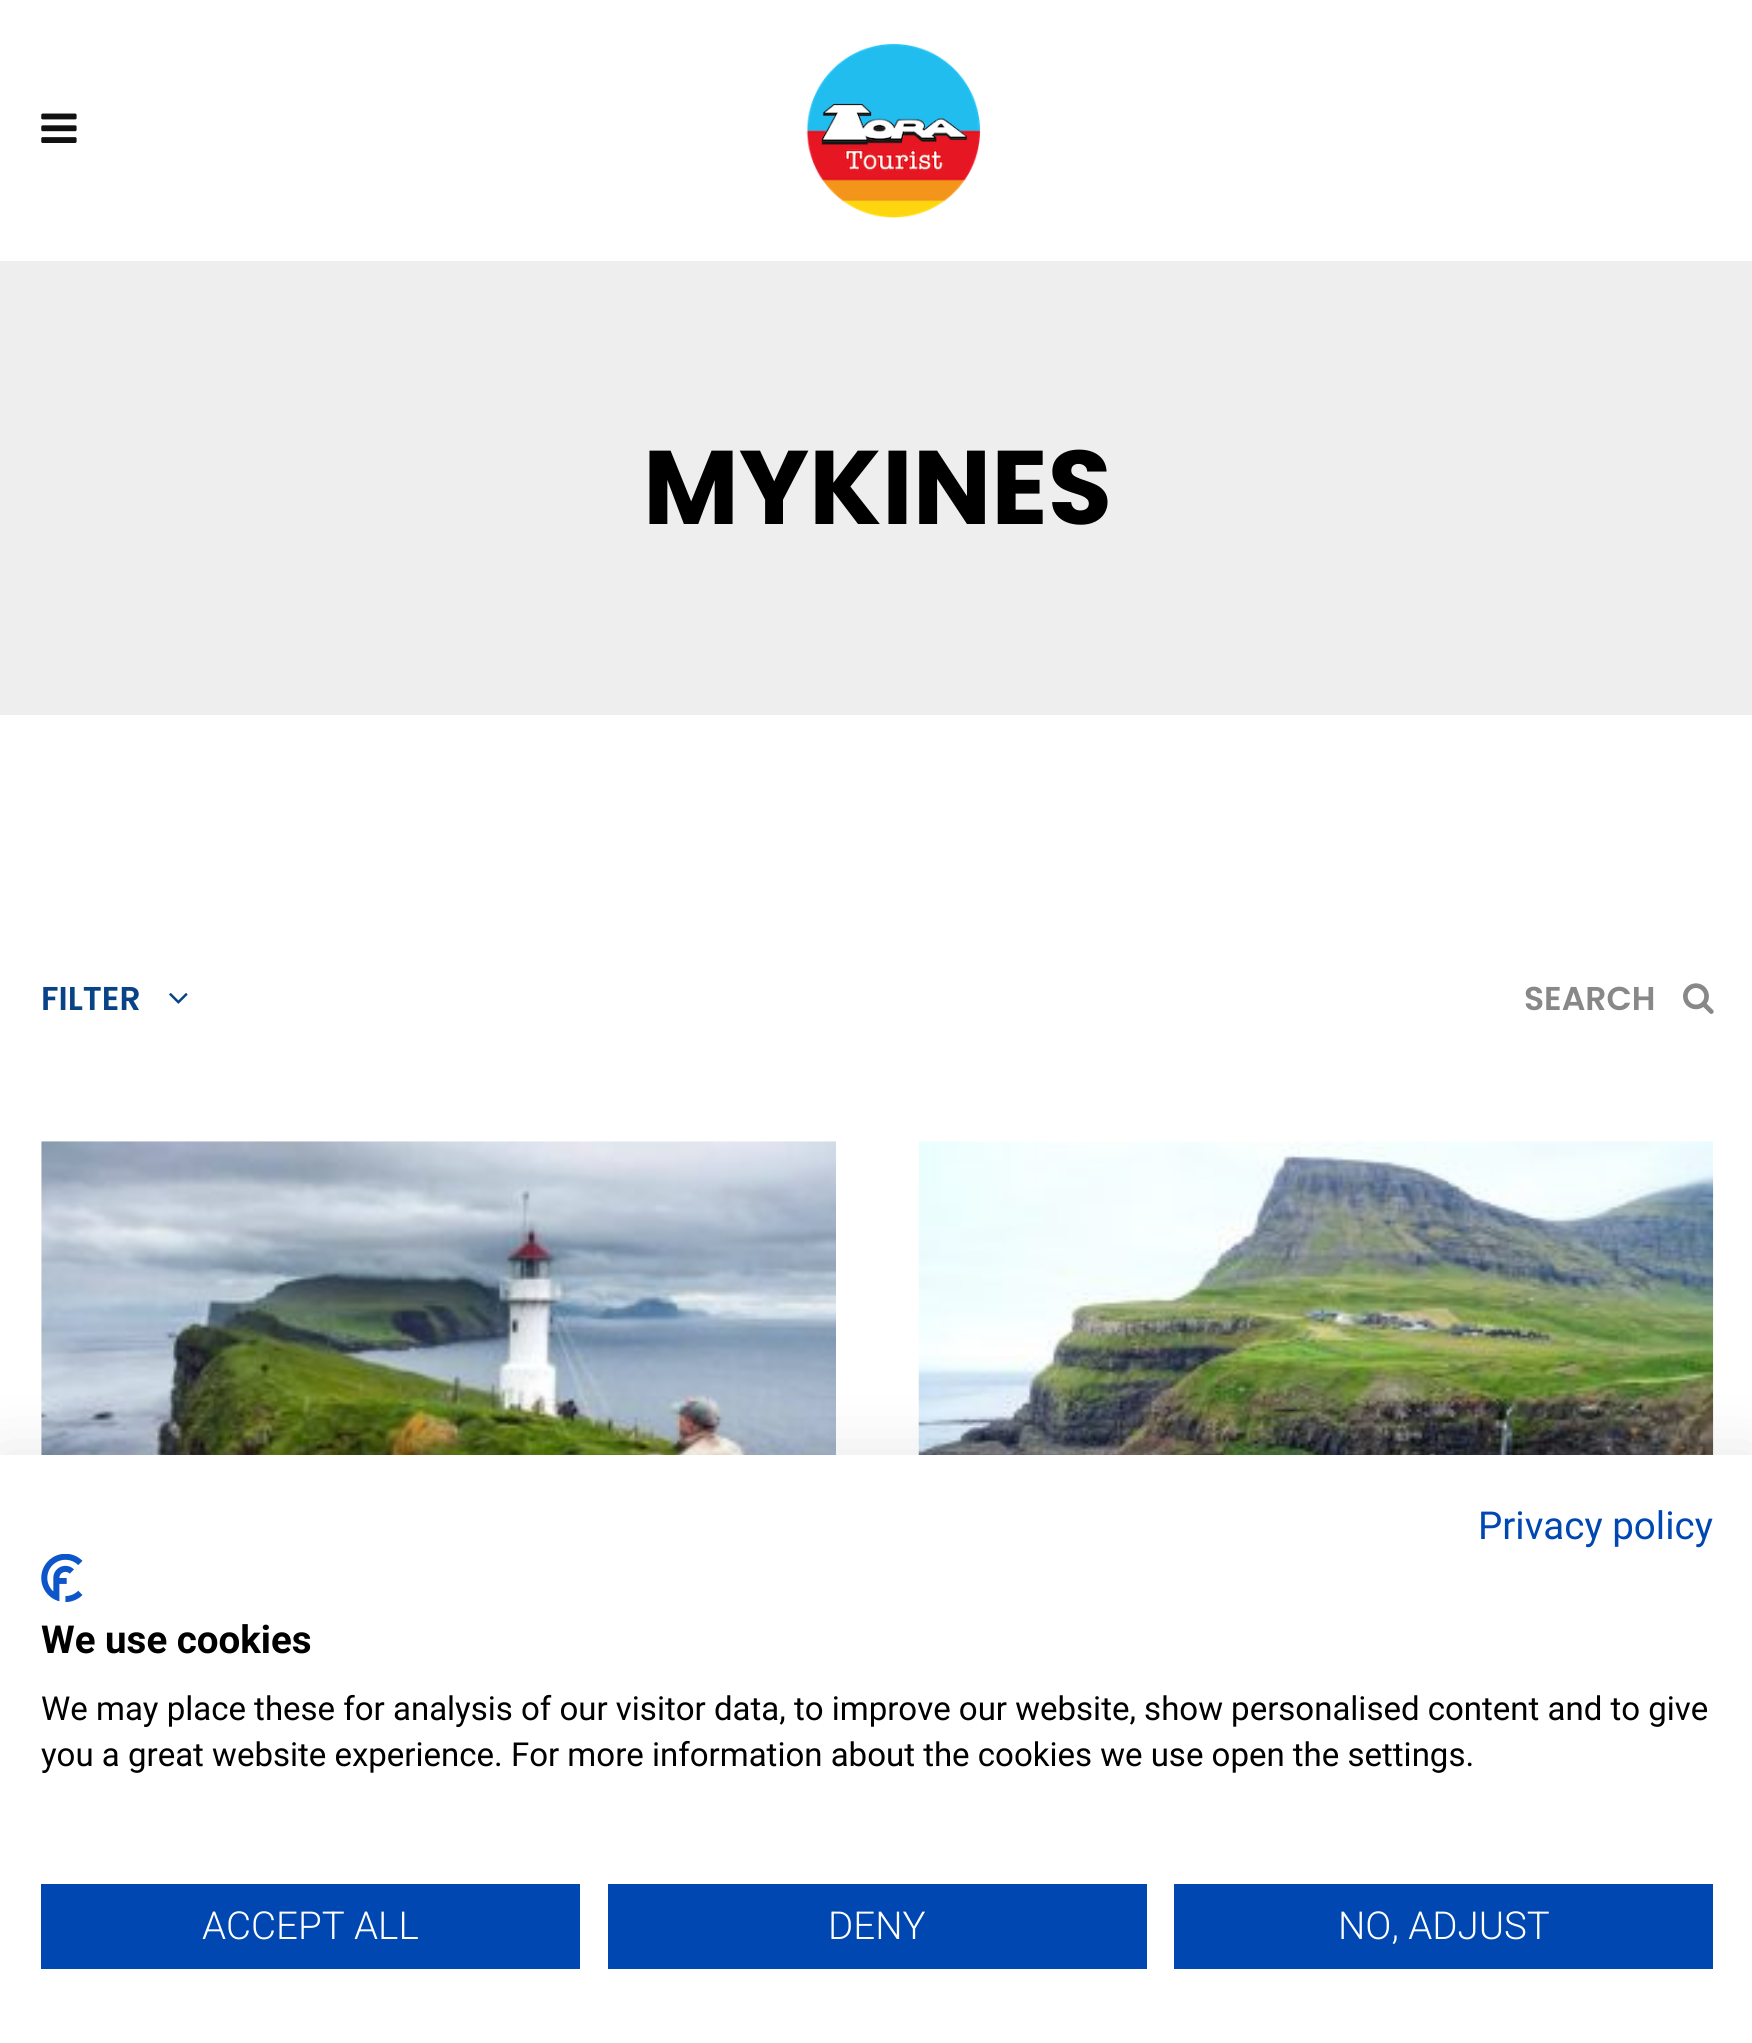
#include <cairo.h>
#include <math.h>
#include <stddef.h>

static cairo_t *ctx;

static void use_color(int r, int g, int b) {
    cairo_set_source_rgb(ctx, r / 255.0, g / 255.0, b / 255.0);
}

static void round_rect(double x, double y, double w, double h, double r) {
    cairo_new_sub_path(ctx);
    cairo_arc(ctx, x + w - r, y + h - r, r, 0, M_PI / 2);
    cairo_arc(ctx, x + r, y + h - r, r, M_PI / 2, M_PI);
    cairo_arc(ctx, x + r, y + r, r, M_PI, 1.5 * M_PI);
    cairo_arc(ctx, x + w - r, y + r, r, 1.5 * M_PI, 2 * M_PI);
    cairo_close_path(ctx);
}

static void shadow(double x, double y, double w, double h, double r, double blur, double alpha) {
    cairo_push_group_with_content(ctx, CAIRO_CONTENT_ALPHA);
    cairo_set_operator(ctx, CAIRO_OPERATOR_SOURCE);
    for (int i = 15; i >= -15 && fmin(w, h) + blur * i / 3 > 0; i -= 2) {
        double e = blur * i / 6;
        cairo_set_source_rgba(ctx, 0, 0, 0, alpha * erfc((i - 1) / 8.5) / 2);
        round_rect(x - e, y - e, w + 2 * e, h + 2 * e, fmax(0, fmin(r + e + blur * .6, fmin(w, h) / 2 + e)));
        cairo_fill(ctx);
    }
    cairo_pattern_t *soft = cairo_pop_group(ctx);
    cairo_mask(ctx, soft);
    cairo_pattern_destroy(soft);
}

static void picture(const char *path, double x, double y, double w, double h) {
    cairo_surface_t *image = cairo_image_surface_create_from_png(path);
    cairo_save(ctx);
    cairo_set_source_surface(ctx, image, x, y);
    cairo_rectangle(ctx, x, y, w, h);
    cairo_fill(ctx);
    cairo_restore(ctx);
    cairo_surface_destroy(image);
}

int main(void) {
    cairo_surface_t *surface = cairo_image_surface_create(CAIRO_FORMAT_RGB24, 1752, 2043);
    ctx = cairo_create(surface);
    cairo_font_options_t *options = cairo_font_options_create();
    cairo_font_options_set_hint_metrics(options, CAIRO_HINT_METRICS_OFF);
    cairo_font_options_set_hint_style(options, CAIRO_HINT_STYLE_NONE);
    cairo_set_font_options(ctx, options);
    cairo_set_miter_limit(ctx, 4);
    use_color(255, 255, 255);
    cairo_paint(ctx);
    picture("img1.png", 41, 113, 36, 30);
    picture("img2.png", 806, 43, 175, 175);
    use_color(238, 238, 238);
    cairo_rectangle(ctx, 0, 261, 1752, 454);
    cairo_fill(ctx);
    cairo_select_font_face(ctx, "Poppins", CAIRO_FONT_SLANT_NORMAL, CAIRO_FONT_WEIGHT_BOLD);
    cairo_set_font_size(ctx, 104.5);
    use_color(0, 0, 0);
    cairo_move_to(ctx, 643, 524);
    cairo_show_text(ctx, "MYKINES");
    cairo_select_font_face(ctx, "Poppins SemiBold", CAIRO_FONT_SLANT_NORMAL, CAIRO_FONT_WEIGHT_NORMAL);
    cairo_set_font_size(ctx, 33);
    use_color(7, 67, 134);
    cairo_move_to(ctx, 41, 1010);
    cairo_show_text(ctx, "FILTER");
    picture("img3.png", 169, 993, 19, 11);
    use_color(136, 136, 136);
    cairo_move_to(ctx, 1524, 1010);
    cairo_show_text(ctx, "SEARCH");
    picture("img4.png", 1683, 983, 31, 31);
    picture("img5.png", 41, 1141, 795, 314);
    picture("img6.png", 918, 1141, 796, 314);
    use_color(0, 0, 0);
    shadow(0, 1455, 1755, 588, 0, 33, 0.1);
    use_color(255, 255, 255);
    cairo_rectangle(ctx, 0, 1455, 1752, 588);
    cairo_fill(ctx);
    cairo_select_font_face(ctx, "Roboto", CAIRO_FONT_SLANT_NORMAL, CAIRO_FONT_WEIGHT_NORMAL);
    cairo_set_font_size(ctx, 38.5);
    use_color(0, 71, 178);
    cairo_move_to(ctx, 1478, 1539);
    cairo_show_text(ctx, "Privacy policy");
    picture("img7.png", 41, 1554, 42, 49);
    cairo_select_font_face(ctx, "Roboto", CAIRO_FONT_SLANT_NORMAL, CAIRO_FONT_WEIGHT_BOLD);
    use_color(0, 0, 0);
    cairo_move_to(ctx, 41, 1653);
    cairo_show_text(ctx, "We use cookies");
    cairo_select_font_face(ctx, "Roboto", CAIRO_FONT_SLANT_NORMAL, CAIRO_FONT_WEIGHT_NORMAL);
    cairo_set_font_size(ctx, 33);
    cairo_move_to(ctx, 41, 1720);
    cairo_show_text(ctx, "We may place these for analysis of our visitor data, to improve our website, show personalised content and to give");
    cairo_move_to(ctx, 41, 1766);
    cairo_show_text(ctx, "you a great website experience. For more information about the cookies we use open the settings.");
    use_color(0, 71, 178);
    cairo_rectangle(ctx, 41, 1884, 539, 85);
    cairo_fill(ctx);
    cairo_select_font_face(ctx, "Roboto Light", CAIRO_FONT_SLANT_NORMAL, CAIRO_FONT_WEIGHT_NORMAL);
    cairo_set_font_size(ctx, 38.5);
    use_color(255, 255, 255);
    cairo_move_to(ctx, 202, 1939);
    cairo_show_text(ctx, "ACCEPT ALL");
    use_color(0, 71, 178);
    cairo_rectangle(ctx, 608, 1884, 539, 85);
    cairo_fill(ctx);
    use_color(255, 255, 255);
    cairo_move_to(ctx, 828, 1939);
    cairo_show_text(ctx, "DENY");
    use_color(0, 71, 178);
    cairo_rectangle(ctx, 1174, 1884, 539, 85);
    cairo_fill(ctx);
    use_color(255, 255, 255);
    cairo_move_to(ctx, 1338, 1939);
    cairo_show_text(ctx, "NO, ADJUST");
    cairo_surface_write_to_png(surface, "result.png");
    cairo_font_options_destroy(options);
    cairo_destroy(ctx);
    cairo_surface_destroy(surface);
    return 0;
}
